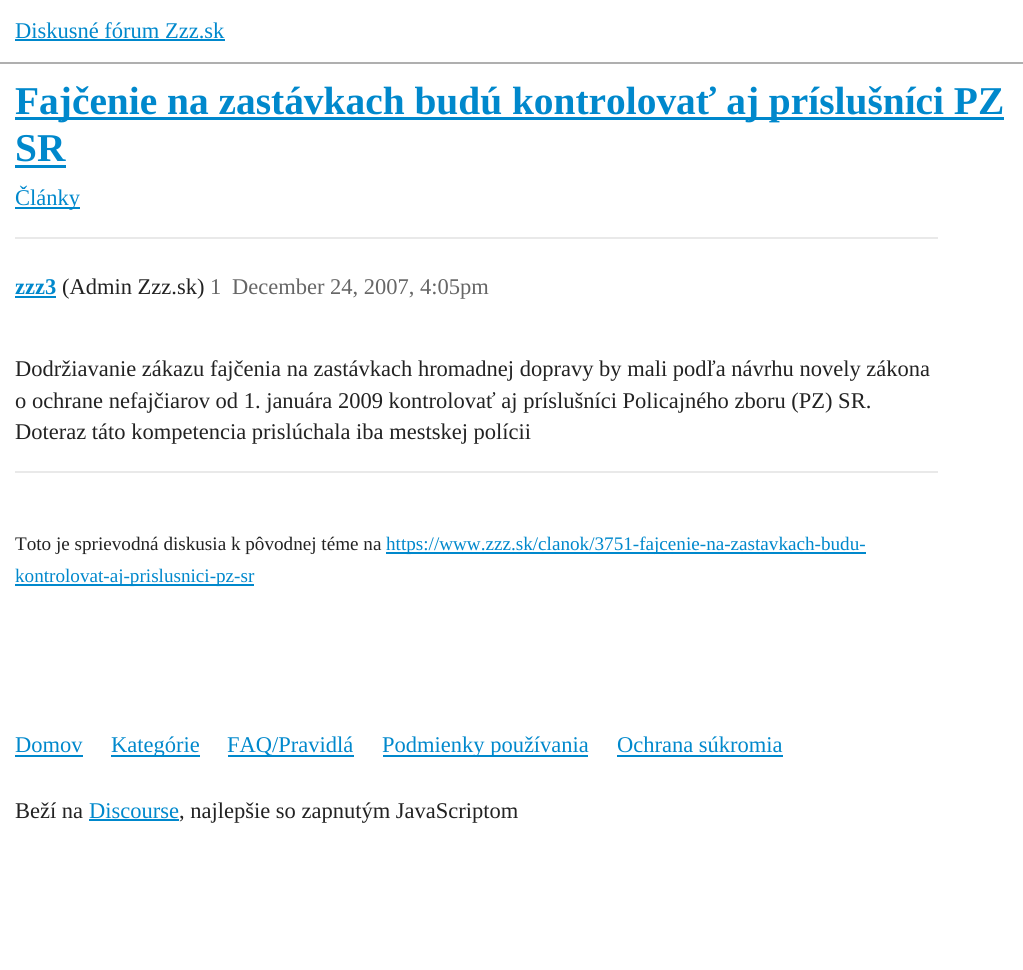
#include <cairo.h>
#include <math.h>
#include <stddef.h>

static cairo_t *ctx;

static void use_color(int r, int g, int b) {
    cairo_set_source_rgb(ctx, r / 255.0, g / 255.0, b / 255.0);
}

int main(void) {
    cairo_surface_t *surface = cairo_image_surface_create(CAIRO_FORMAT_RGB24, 1023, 970);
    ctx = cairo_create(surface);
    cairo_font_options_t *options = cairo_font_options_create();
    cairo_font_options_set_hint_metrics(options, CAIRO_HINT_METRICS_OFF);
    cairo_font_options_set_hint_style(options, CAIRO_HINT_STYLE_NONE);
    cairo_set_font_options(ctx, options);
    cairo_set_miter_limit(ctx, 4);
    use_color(255, 255, 255);
    cairo_paint(ctx);
    use_color(175, 175, 175);
    cairo_rectangle(ctx, 0, 62, 1023, 2);
    cairo_fill(ctx);
    cairo_select_font_face(ctx, "Liberation Serif", CAIRO_FONT_SLANT_NORMAL, CAIRO_FONT_WEIGHT_NORMAL);
    cairo_set_font_size(ctx, 22.5);
    use_color(0, 136, 204);
    cairo_move_to(ctx, 15, 38);
    cairo_show_text(ctx, "Diskusné fórum Zzz.sk");
    cairo_rectangle(ctx, 15, 39, 210, 2);
    cairo_fill(ctx);
    cairo_rectangle(ctx, 15, 117, 989, 3);
    cairo_fill(ctx);
    cairo_select_font_face(ctx, "Liberation Serif", CAIRO_FONT_SLANT_NORMAL, CAIRO_FONT_WEIGHT_BOLD);
    cairo_set_font_size(ctx, 39.4);
    cairo_move_to(ctx, 15, 114);
    cairo_show_text(ctx, "Fajčenie na zastávkach budú kontrolovať aj príslušníci PZ");
    cairo_move_to(ctx, 15, 161);
    cairo_show_text(ctx, "SR");
    cairo_rectangle(ctx, 15, 165, 51, 3);
    cairo_fill(ctx);
    cairo_rectangle(ctx, 15, 207, 65, 2);
    cairo_fill(ctx);
    cairo_select_font_face(ctx, "Liberation Serif", CAIRO_FONT_SLANT_NORMAL, CAIRO_FONT_WEIGHT_NORMAL);
    cairo_set_font_size(ctx, 22.5);
    cairo_move_to(ctx, 15, 205);
    cairo_show_text(ctx, "Články");
    use_color(233, 233, 233);
    cairo_rectangle(ctx, 15, 237, 923, 2);
    cairo_fill(ctx);
    cairo_select_font_face(ctx, "Liberation Serif", CAIRO_FONT_SLANT_NORMAL, CAIRO_FONT_WEIGHT_BOLD);
    use_color(0, 136, 204);
    cairo_move_to(ctx, 15, 294);
    cairo_show_text(ctx, "zzz3");
    cairo_rectangle(ctx, 15, 296, 41, 2);
    cairo_fill(ctx);
    cairo_select_font_face(ctx, "Liberation Serif", CAIRO_FONT_SLANT_NORMAL, CAIRO_FONT_WEIGHT_NORMAL);
    use_color(34, 34, 34);
    cairo_move_to(ctx, 62, 294);
    cairo_show_text(ctx, "(Admin Zzz.sk)");
    use_color(102, 102, 102);
    cairo_move_to(ctx, 210, 294);
    cairo_show_text(ctx, "1");
    cairo_move_to(ctx, 232, 294);
    cairo_show_text(ctx, "December 24, 2007, 4:05pm");
    use_color(34, 34, 34);
    cairo_move_to(ctx, 15, 376);
    cairo_show_text(ctx, "Dodržiavanie zákazu fajčenia na zastávkach hromadnej dopravy by mali podľa návrhu novely zákona");
    cairo_move_to(ctx, 15, 408);
    cairo_show_text(ctx, "o ochrane nefajčiarov od 1. januára 2009 kontrolovať aj príslušníci Policajného zboru (PZ) SR.");
    cairo_move_to(ctx, 15, 439);
    cairo_show_text(ctx, "Doteraz táto kompetencia prislúchala iba mestskej polícii");
    use_color(233, 233, 233);
    cairo_rectangle(ctx, 15, 471, 923, 2);
    cairo_fill(ctx);
    cairo_set_font_size(ctx, 19.15);
    use_color(34, 34, 34);
    cairo_move_to(ctx, 15, 550);
    cairo_show_text(ctx, "Toto je sprievodná diskusia k pôvodnej téme na");
    use_color(0, 136, 204);
    cairo_rectangle(ctx, 386, 552, 480, 2);
    cairo_fill(ctx);
    cairo_move_to(ctx, 386, 550);
    cairo_show_text(ctx, "https://www.zzz.sk/clanok/3751-fajcenie-na-zastavkach-budu-");
    cairo_rectangle(ctx, 15, 584, 239, 2);
    cairo_fill(ctx);
    cairo_move_to(ctx, 15, 582);
    cairo_show_text(ctx, "kontrolovat-aj-prislusnici-pz-sr");
    cairo_set_font_size(ctx, 22.5);
    cairo_move_to(ctx, 15, 752);
    cairo_show_text(ctx, "Domov");
    cairo_rectangle(ctx, 15, 755, 68, 2);
    cairo_fill(ctx);
    cairo_rectangle(ctx, 111, 755, 89, 2);
    cairo_fill(ctx);
    cairo_move_to(ctx, 111, 752);
    cairo_show_text(ctx, "Kategórie");
    cairo_rectangle(ctx, 228, 755, 126, 2);
    cairo_fill(ctx);
    cairo_move_to(ctx, 227, 752);
    cairo_show_text(ctx, "FAQ/Pravidlá");
    cairo_rectangle(ctx, 383, 755, 205, 2);
    cairo_fill(ctx);
    cairo_move_to(ctx, 382, 752);
    cairo_show_text(ctx, "Podmienky používania");
    cairo_move_to(ctx, 617, 752);
    cairo_show_text(ctx, "Ochrana súkromia");
    cairo_rectangle(ctx, 617, 755, 166, 2);
    cairo_fill(ctx);
    use_color(34, 34, 34);
    cairo_move_to(ctx, 15, 818);
    cairo_show_text(ctx, "Beží na");
    use_color(0, 136, 204);
    cairo_move_to(ctx, 89, 818);
    cairo_show_text(ctx, "Discourse");
    cairo_rectangle(ctx, 89, 819, 90, 2);
    cairo_fill(ctx);
    use_color(34, 34, 34);
    cairo_move_to(ctx, 179, 818);
    cairo_show_text(ctx, ", najlepšie so zapnutým JavaScriptom");
    cairo_surface_write_to_png(surface, "result.png");
    cairo_font_options_destroy(options);
    cairo_destroy(ctx);
    cairo_surface_destroy(surface);
    return 0;
}
